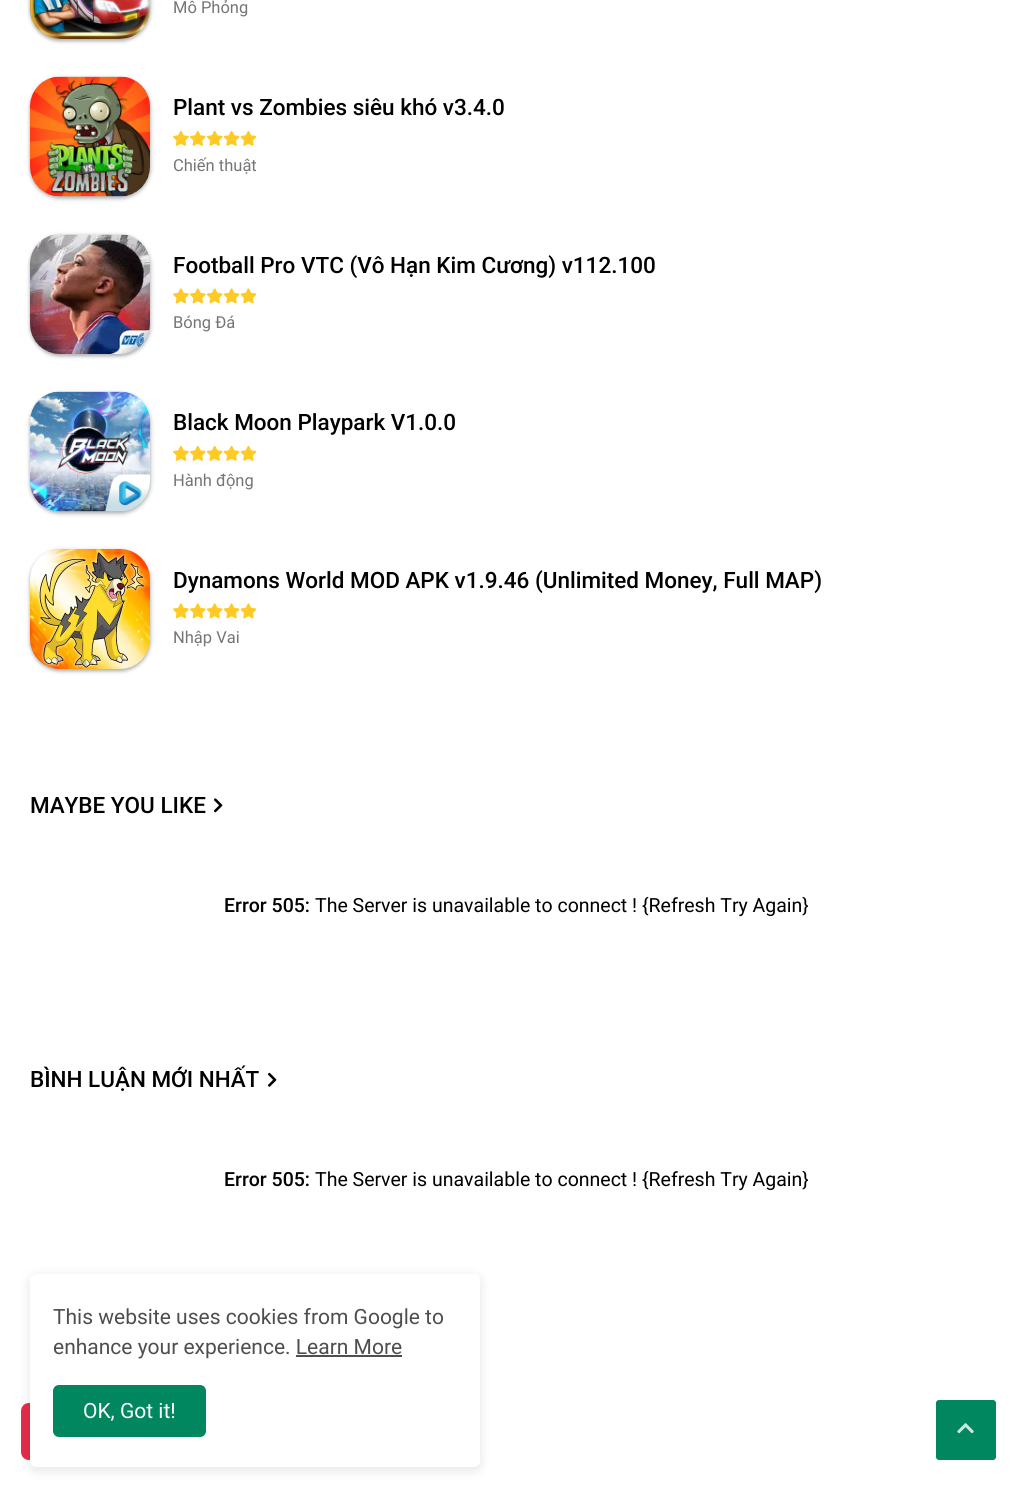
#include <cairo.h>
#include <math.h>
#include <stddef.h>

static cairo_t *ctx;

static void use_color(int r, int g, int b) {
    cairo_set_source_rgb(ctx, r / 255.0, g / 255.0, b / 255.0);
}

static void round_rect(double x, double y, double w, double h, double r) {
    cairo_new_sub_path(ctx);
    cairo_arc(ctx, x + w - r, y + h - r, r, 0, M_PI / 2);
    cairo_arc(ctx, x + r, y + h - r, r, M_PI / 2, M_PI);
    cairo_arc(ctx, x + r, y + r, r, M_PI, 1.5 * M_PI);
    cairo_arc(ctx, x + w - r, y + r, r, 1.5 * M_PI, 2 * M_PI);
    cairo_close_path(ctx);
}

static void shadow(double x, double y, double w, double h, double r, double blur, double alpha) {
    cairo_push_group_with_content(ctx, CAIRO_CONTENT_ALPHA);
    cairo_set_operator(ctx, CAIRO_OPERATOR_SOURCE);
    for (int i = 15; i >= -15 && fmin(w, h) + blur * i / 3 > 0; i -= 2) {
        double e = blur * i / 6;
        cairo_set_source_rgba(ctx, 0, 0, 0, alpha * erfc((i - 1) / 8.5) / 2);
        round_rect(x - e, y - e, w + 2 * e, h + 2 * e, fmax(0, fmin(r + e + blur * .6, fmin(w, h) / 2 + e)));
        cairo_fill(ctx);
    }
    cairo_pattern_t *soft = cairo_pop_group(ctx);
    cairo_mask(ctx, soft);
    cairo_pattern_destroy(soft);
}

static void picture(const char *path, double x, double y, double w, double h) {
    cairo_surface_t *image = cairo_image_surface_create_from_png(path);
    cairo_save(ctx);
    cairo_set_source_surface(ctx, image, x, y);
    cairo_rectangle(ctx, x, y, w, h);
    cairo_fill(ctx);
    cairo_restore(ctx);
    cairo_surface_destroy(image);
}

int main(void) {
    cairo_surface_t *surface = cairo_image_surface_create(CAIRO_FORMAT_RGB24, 1033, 1496);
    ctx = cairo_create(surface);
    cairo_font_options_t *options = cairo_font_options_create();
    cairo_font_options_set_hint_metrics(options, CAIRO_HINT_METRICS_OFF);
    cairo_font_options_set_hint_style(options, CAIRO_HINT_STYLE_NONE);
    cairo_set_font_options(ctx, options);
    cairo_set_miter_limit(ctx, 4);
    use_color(255, 255, 255);
    cairo_paint(ctx);
    use_color(60, 64, 67);
    shadow(29, -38, 123, 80, 32, 2, 0.15);
    shadow(30, -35, 120, 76, 30, 1.5, 0.3);
    cairo_set_source_rgba(ctx, 0.608, 0.608, 0.608, 0.1);
    round_rect(30, -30, 120, 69, 30);
    cairo_fill(ctx);
    picture("img1.png", 30, 0, 120, 39);
    cairo_select_font_face(ctx, "Roboto", CAIRO_FONT_SLANT_NORMAL, CAIRO_FONT_WEIGHT_NORMAL);
    cairo_set_font_size(ctx, 16.5);
    use_color(117, 117, 117);
    cairo_move_to(ctx, 173, 13);
    cairo_show_text(ctx, "Mô Phỏng");
    use_color(60, 64, 67);
    shadow(29, 77, 123, 123, 32, 2, 0.15);
    shadow(30, 78, 120, 120, 30, 1.5, 0.3);
    cairo_set_source_rgba(ctx, 0.608, 0.608, 0.608, 0.1);
    round_rect(30, 77, 120, 120, 30);
    cairo_fill(ctx);
    picture("img2.png", 30, 76, 120, 121);
    cairo_select_font_face(ctx, "Roboto Medium", CAIRO_FONT_SLANT_NORMAL, CAIRO_FONT_WEIGHT_NORMAL);
    cairo_set_font_size(ctx, 22.5);
    use_color(0, 0, 0);
    cairo_move_to(ctx, 173, 115);
    cairo_show_text(ctx, "Plant vs Zombies siêu khó v3.4.0");
    picture("img3.png", 173, 130, 84, 16);
    cairo_select_font_face(ctx, "Roboto", CAIRO_FONT_SLANT_NORMAL, CAIRO_FONT_WEIGHT_NORMAL);
    cairo_set_font_size(ctx, 16.5);
    use_color(117, 117, 117);
    cairo_move_to(ctx, 173, 171);
    cairo_show_text(ctx, "Chiến thuật");
    use_color(60, 64, 67);
    shadow(29, 234, 123, 123, 32, 2, 0.15);
    shadow(30, 236, 120, 120, 30, 1.5, 0.3);
    cairo_set_source_rgba(ctx, 0.608, 0.608, 0.608, 0.1);
    round_rect(30, 234, 120, 120, 30);
    cairo_fill(ctx);
    picture("img4.png", 30, 234, 120, 120);
    cairo_select_font_face(ctx, "Roboto Medium", CAIRO_FONT_SLANT_NORMAL, CAIRO_FONT_WEIGHT_NORMAL);
    cairo_set_font_size(ctx, 22.5);
    use_color(0, 0, 0);
    cairo_move_to(ctx, 173, 273);
    cairo_show_text(ctx, "Football Pro VTC (Vô Hạn Kim Cương) v112.100");
    picture("img5.png", 173, 288, 84, 16);
    cairo_select_font_face(ctx, "Roboto", CAIRO_FONT_SLANT_NORMAL, CAIRO_FONT_WEIGHT_NORMAL);
    cairo_set_font_size(ctx, 16.5);
    use_color(117, 117, 117);
    cairo_move_to(ctx, 173, 328);
    cairo_show_text(ctx, "Bóng Đá");
    use_color(60, 64, 67);
    shadow(29, 392, 123, 123, 32, 2, 0.15);
    shadow(30, 393, 120, 120, 30, 1.5, 0.3);
    cairo_set_source_rgba(ctx, 0.608, 0.608, 0.608, 0.1);
    round_rect(30, 392, 120, 120, 30);
    cairo_fill(ctx);
    picture("img6.png", 30, 391, 120, 121);
    cairo_select_font_face(ctx, "Roboto Medium", CAIRO_FONT_SLANT_NORMAL, CAIRO_FONT_WEIGHT_NORMAL);
    cairo_set_font_size(ctx, 22.5);
    use_color(0, 0, 0);
    cairo_move_to(ctx, 173, 430);
    cairo_show_text(ctx, "Black Moon Playpark V1.0.0");
    picture("img3.png", 173, 445, 84, 16);
    cairo_select_font_face(ctx, "Roboto", CAIRO_FONT_SLANT_NORMAL, CAIRO_FONT_WEIGHT_NORMAL);
    cairo_set_font_size(ctx, 16.5);
    use_color(117, 117, 117);
    cairo_move_to(ctx, 173, 486);
    cairo_show_text(ctx, "Hành động");
    use_color(60, 64, 67);
    shadow(29, 549, 123, 123, 32, 2, 0.15);
    shadow(30, 551, 120, 120, 30, 1.5, 0.3);
    cairo_set_source_rgba(ctx, 0.608, 0.608, 0.608, 0.1);
    round_rect(30, 549, 120, 120, 30);
    cairo_fill(ctx);
    picture("img7.png", 30, 549, 120, 120);
    cairo_select_font_face(ctx, "Roboto Medium", CAIRO_FONT_SLANT_NORMAL, CAIRO_FONT_WEIGHT_NORMAL);
    cairo_set_font_size(ctx, 22.5);
    use_color(0, 0, 0);
    cairo_move_to(ctx, 173, 588);
    cairo_show_text(ctx, "Dynamons World MOD APK v1.9.46 (Unlimited Money, Full MAP)");
    picture("img5.png", 173, 603, 84, 16);
    cairo_select_font_face(ctx, "Roboto", CAIRO_FONT_SLANT_NORMAL, CAIRO_FONT_WEIGHT_NORMAL);
    cairo_set_font_size(ctx, 16.5);
    use_color(117, 117, 117);
    cairo_move_to(ctx, 173, 643);
    cairo_show_text(ctx, "Nhập Vai");
    cairo_select_font_face(ctx, "Roboto Medium", CAIRO_FONT_SLANT_NORMAL, CAIRO_FONT_WEIGHT_NORMAL);
    cairo_set_font_size(ctx, 22.5);
    use_color(0, 0, 0);
    cairo_move_to(ctx, 30, 813);
    cairo_show_text(ctx, "MAYBE YOU LIKE");
    picture("img8.png", 213, 798, 10, 15);
    cairo_set_font_size(ctx, 19.5);
    cairo_move_to(ctx, 224, 912);
    cairo_show_text(ctx, "Error 505:");
    cairo_select_font_face(ctx, "Roboto", CAIRO_FONT_SLANT_NORMAL, CAIRO_FONT_WEIGHT_NORMAL);
    cairo_move_to(ctx, 315, 912);
    cairo_show_text(ctx, "The Server is unavailable to connect ! {Refresh Try Again}");
    cairo_select_font_face(ctx, "Roboto Medium", CAIRO_FONT_SLANT_NORMAL, CAIRO_FONT_WEIGHT_NORMAL);
    cairo_set_font_size(ctx, 22.5);
    cairo_move_to(ctx, 30, 1087);
    cairo_show_text(ctx, "BÌNH LUẬN MỚI NHẤT");
    picture("img9.png", 267, 1072, 10, 15);
    cairo_set_font_size(ctx, 19.5);
    cairo_move_to(ctx, 224, 1186);
    cairo_show_text(ctx, "Error 505:");
    cairo_select_font_face(ctx, "Roboto", CAIRO_FONT_SLANT_NORMAL, CAIRO_FONT_WEIGHT_NORMAL);
    cairo_move_to(ctx, 315, 1186);
    cairo_show_text(ctx, "The Server is unavailable to connect ! {Refresh Try Again}");
    use_color(229, 44, 74);
    round_rect(21, 1403, 210, 57, 8);
    cairo_fill(ctx);
    use_color(0, 0, 0);
    shadow(30, 1277, 450, 193, 6, 6, 0.11);
    use_color(255, 255, 255);
    round_rect(30, 1274, 450, 193, 6);
    cairo_fill(ctx);
    cairo_set_font_size(ctx, 21);
    use_color(78, 78, 78);
    cairo_move_to(ctx, 53, 1324);
    cairo_show_text(ctx, "This website uses cookies from Google to");
    cairo_move_to(ctx, 53, 1354);
    cairo_show_text(ctx, "enhance your experience. Learn More");
    cairo_rectangle(ctx, 296, 1355, 106, 2);
    cairo_fill(ctx);
    use_color(1, 135, 95);
    round_rect(53, 1385, 153, 52, 6);
    cairo_fill(ctx);
    use_color(255, 255, 255);
    cairo_move_to(ctx, 83, 1418);
    cairo_show_text(ctx, "OK, Got it!");
    use_color(1, 135, 95);
    round_rect(936, 1400, 60, 60, 3);
    cairo_fill(ctx);
    picture("img10.png", 957, 1423, 17, 11);
    cairo_surface_write_to_png(surface, "result.png");
    cairo_font_options_destroy(options);
    cairo_destroy(ctx);
    cairo_surface_destroy(surface);
    return 0;
}
